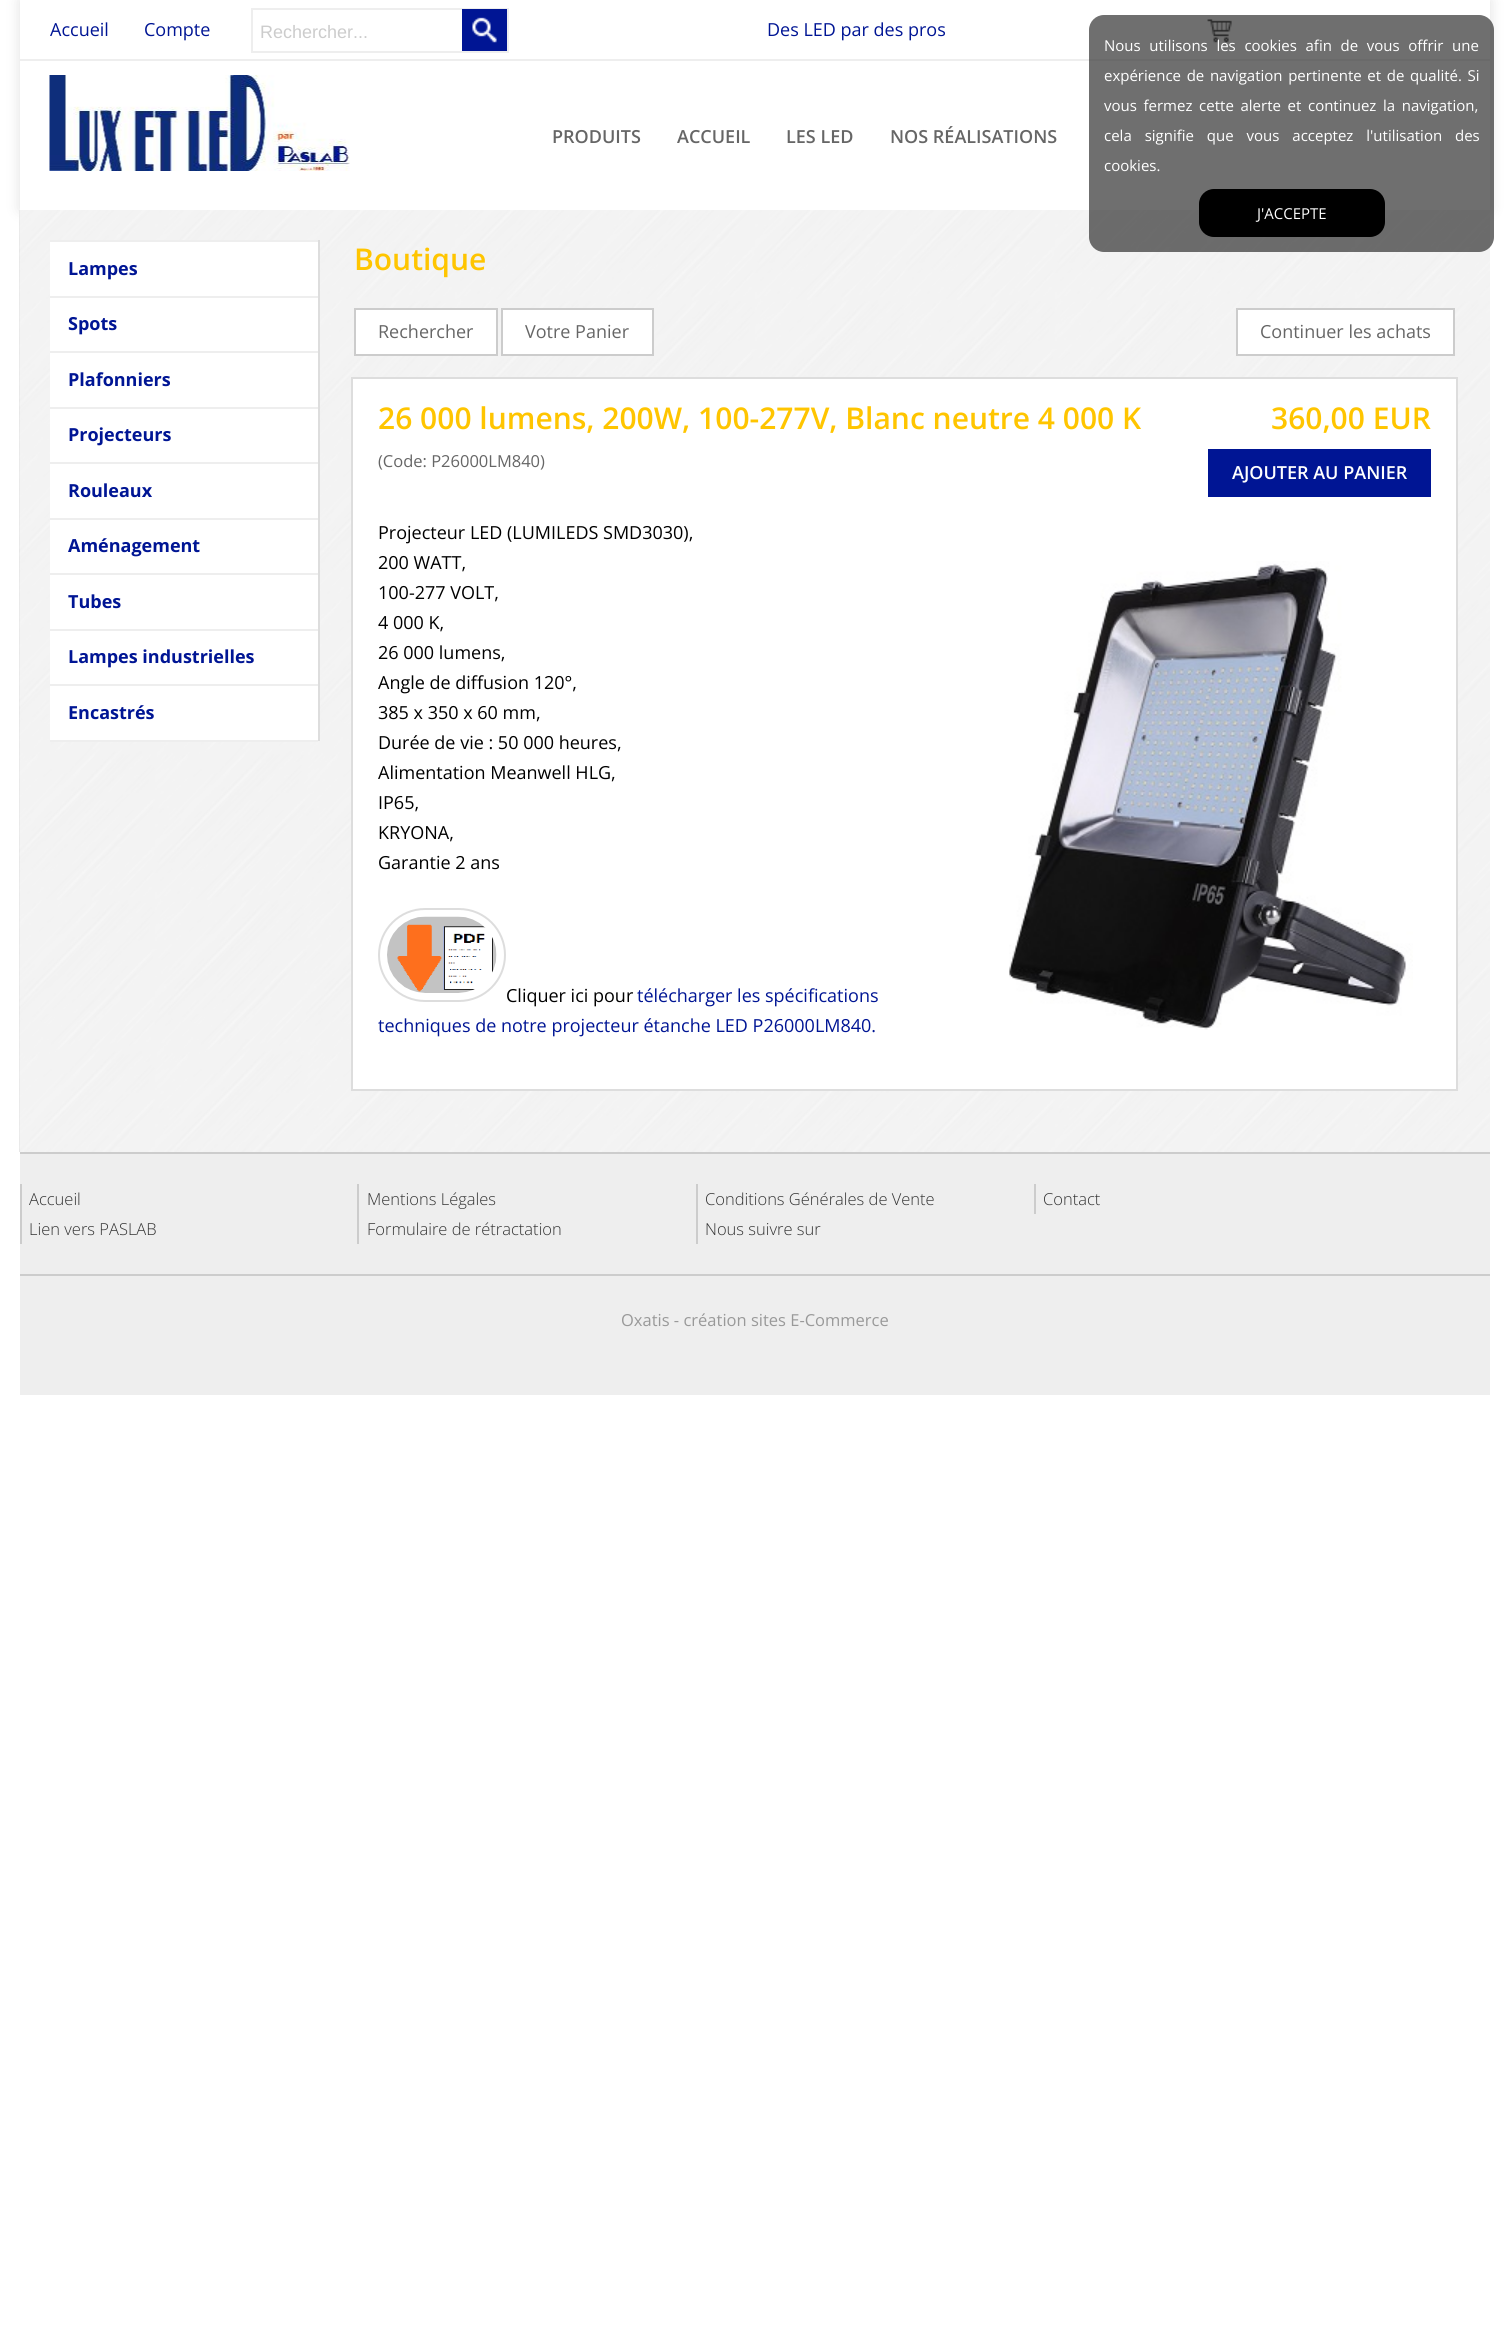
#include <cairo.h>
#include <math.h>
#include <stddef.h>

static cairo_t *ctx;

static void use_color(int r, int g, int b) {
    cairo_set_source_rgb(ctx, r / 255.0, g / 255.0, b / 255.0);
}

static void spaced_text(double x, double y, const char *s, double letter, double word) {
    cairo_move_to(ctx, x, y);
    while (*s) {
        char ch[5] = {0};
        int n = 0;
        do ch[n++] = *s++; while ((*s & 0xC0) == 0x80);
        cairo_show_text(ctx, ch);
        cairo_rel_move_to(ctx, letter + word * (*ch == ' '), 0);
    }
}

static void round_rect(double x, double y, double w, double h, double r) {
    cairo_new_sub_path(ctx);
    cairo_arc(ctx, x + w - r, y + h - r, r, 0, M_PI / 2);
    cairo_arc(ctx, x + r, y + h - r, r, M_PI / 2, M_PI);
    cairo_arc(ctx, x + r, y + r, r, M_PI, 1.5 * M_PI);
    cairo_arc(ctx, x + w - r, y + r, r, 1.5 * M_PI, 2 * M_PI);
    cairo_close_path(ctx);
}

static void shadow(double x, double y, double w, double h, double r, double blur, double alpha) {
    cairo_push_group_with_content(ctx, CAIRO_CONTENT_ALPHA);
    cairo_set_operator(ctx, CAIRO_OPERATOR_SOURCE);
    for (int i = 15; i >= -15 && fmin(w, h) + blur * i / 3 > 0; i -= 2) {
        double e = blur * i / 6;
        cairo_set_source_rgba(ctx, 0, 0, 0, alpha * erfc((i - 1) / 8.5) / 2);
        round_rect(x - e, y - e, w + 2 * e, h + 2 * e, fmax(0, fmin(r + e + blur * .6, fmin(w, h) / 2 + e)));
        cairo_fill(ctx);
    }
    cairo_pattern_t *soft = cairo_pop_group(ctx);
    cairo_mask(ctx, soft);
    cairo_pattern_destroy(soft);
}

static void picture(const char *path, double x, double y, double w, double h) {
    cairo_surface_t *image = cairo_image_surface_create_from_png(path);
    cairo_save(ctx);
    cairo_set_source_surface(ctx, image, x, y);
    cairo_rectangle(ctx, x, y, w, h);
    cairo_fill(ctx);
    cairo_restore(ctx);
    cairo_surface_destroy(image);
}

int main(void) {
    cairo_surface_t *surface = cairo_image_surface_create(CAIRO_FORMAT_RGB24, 1508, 2328);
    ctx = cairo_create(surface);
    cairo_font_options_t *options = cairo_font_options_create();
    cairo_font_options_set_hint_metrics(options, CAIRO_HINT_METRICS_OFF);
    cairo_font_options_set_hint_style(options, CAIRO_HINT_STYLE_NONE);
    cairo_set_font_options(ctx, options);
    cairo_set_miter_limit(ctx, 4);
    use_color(255, 255, 255);
    cairo_paint(ctx);
    use_color(0, 0, 0);
    shadow(20, 0, 1470, 210, 0, 7.5, 0.12);
    use_color(255, 255, 255);
    cairo_rectangle(ctx, 20, 0, 1470, 210);
    cairo_fill(ctx);
    use_color(238, 238, 238);
    cairo_rectangle(ctx, 20, 59, 1470, 2);
    cairo_fill(ctx);
    cairo_select_font_face(ctx, "Open Sans", CAIRO_FONT_SLANT_NORMAL, CAIRO_FONT_WEIGHT_NORMAL);
    cairo_set_font_size(ctx, 18);
    use_color(0, 21, 148);
    cairo_move_to(ctx, 50, 36);
    cairo_show_text(ctx, "Accueil");
    cairo_move_to(ctx, 144, 36);
    cairo_show_text(ctx, "Compte");
    cairo_rectangle(ctx, 252, 9, 256, 43);
    use_color(238, 238, 238);
    cairo_stroke(ctx);
    cairo_select_font_face(ctx, "Liberation Sans", CAIRO_FONT_SLANT_NORMAL, CAIRO_FONT_WEIGHT_NORMAL);
    use_color(204, 204, 204);
    cairo_move_to(ctx, 260, 38);
    cairo_show_text(ctx, "Rechercher...");
    use_color(0, 21, 148);
    cairo_rectangle(ctx, 462, 9, 45, 42);
    cairo_fill(ctx);
    picture("img1.png", 472, 17, 25, 26);
    cairo_select_font_face(ctx, "Open Sans", CAIRO_FONT_SLANT_NORMAL, CAIRO_FONT_WEIGHT_NORMAL);
    cairo_move_to(ctx, 767, 36);
    cairo_show_text(ctx, "Des LED par des pros");
    picture("img2.png", 1207, 19, 25, 24);
    picture("img3.png", 49, 75, 301, 96);
    cairo_select_font_face(ctx, "Open Sans SemiBold", CAIRO_FONT_SLANT_NORMAL, CAIRO_FONT_WEIGHT_NORMAL);
    use_color(102, 102, 102);
    cairo_move_to(ctx, 552, 143);
    cairo_show_text(ctx, "PRODUITS");
    cairo_move_to(ctx, 677, 143);
    cairo_show_text(ctx, "ACCUEIL");
    cairo_move_to(ctx, 786, 143);
    cairo_show_text(ctx, "LES LED");
    cairo_move_to(ctx, 890, 143);
    cairo_show_text(ctx, "NOS RÉALISATIONS");
    picture("img4.png", 19, 210, 1471, 942);
    use_color(255, 255, 255);
    cairo_rectangle(ctx, 50, 242, 268, 498);
    cairo_fill(ctx);
    use_color(221, 221, 221);
    cairo_rectangle(ctx, 318, 240, 2, 501);
    cairo_fill(ctx);
    use_color(238, 238, 238);
    cairo_rectangle(ctx, 50, 240, 268, 2);
    cairo_fill(ctx);
    cairo_rectangle(ctx, 50, 296, 268, 2);
    cairo_fill(ctx);
    cairo_select_font_face(ctx, "Open Sans", CAIRO_FONT_SLANT_NORMAL, CAIRO_FONT_WEIGHT_BOLD);
    use_color(0, 21, 148);
    cairo_move_to(ctx, 68, 275);
    cairo_show_text(ctx, "Lampes");
    use_color(238, 238, 238);
    cairo_rectangle(ctx, 50, 351, 268, 2);
    cairo_fill(ctx);
    use_color(0, 21, 148);
    cairo_move_to(ctx, 68, 330);
    cairo_show_text(ctx, "Spots");
    use_color(238, 238, 238);
    cairo_rectangle(ctx, 50, 407, 268, 2);
    cairo_fill(ctx);
    use_color(0, 21, 148);
    cairo_move_to(ctx, 68, 386);
    cairo_show_text(ctx, "Plafonniers");
    use_color(238, 238, 238);
    cairo_rectangle(ctx, 50, 462, 268, 2);
    cairo_fill(ctx);
    use_color(0, 21, 148);
    cairo_move_to(ctx, 68, 441);
    cairo_show_text(ctx, "Projecteurs");
    use_color(238, 238, 238);
    cairo_rectangle(ctx, 50, 518, 268, 2);
    cairo_fill(ctx);
    use_color(0, 21, 148);
    cairo_move_to(ctx, 68, 497);
    cairo_show_text(ctx, "Rouleaux");
    use_color(238, 238, 238);
    cairo_rectangle(ctx, 50, 573, 268, 2);
    cairo_fill(ctx);
    use_color(0, 21, 148);
    cairo_move_to(ctx, 68, 552);
    cairo_show_text(ctx, "Aménagement");
    use_color(238, 238, 238);
    cairo_rectangle(ctx, 50, 629, 268, 2);
    cairo_fill(ctx);
    use_color(0, 21, 148);
    cairo_move_to(ctx, 68, 608);
    cairo_show_text(ctx, "Tubes");
    use_color(238, 238, 238);
    cairo_rectangle(ctx, 50, 684, 268, 2);
    cairo_fill(ctx);
    use_color(0, 21, 148);
    cairo_move_to(ctx, 68, 663);
    cairo_show_text(ctx, "Lampes industrielles");
    use_color(238, 238, 238);
    cairo_rectangle(ctx, 50, 740, 268, 2);
    cairo_fill(ctx);
    use_color(0, 21, 148);
    cairo_move_to(ctx, 68, 719);
    cairo_show_text(ctx, "Encastrés");
    cairo_select_font_face(ctx, "Open Sans SemiBold", CAIRO_FONT_SLANT_NORMAL, CAIRO_FONT_WEIGHT_NORMAL);
    cairo_set_font_size(ctx, 30);
    use_color(255, 197, 0);
    cairo_move_to(ctx, 354, 270);
    cairo_show_text(ctx, "Boutique");
    use_color(255, 255, 255);
    cairo_rectangle(ctx, 355, 309, 142, 46);
    cairo_fill_preserve(ctx);
    use_color(204, 204, 204);
    cairo_stroke(ctx);
    cairo_select_font_face(ctx, "Open Sans", CAIRO_FONT_SLANT_NORMAL, CAIRO_FONT_WEIGHT_NORMAL);
    cairo_set_font_size(ctx, 18);
    use_color(102, 102, 102);
    cairo_move_to(ctx, 378, 338);
    cairo_show_text(ctx, "Rechercher");
    use_color(255, 255, 255);
    cairo_rectangle(ctx, 502, 309, 151, 46);
    cairo_fill_preserve(ctx);
    use_color(204, 204, 204);
    cairo_stroke(ctx);
    use_color(102, 102, 102);
    cairo_move_to(ctx, 525, 338);
    cairo_show_text(ctx, "Votre Panier");
    use_color(255, 255, 255);
    cairo_rectangle(ctx, 1237, 309, 217, 46);
    cairo_fill_preserve(ctx);
    use_color(204, 204, 204);
    cairo_stroke(ctx);
    use_color(102, 102, 102);
    cairo_move_to(ctx, 1260, 338);
    cairo_show_text(ctx, "Continuer les achats");
    use_color(255, 255, 255);
    cairo_rectangle(ctx, 352, 378, 1105, 712);
    cairo_fill_preserve(ctx);
    use_color(221, 221, 221);
    cairo_stroke(ctx);
    cairo_select_font_face(ctx, "Open Sans SemiBold", CAIRO_FONT_SLANT_NORMAL, CAIRO_FONT_WEIGHT_NORMAL);
    cairo_set_font_size(ctx, 30);
    use_color(255, 197, 0);
    cairo_move_to(ctx, 378, 429);
    cairo_show_text(ctx, "26 000 lumens, 200W, 100-277V, Blanc neutre 4 000 K");
    cairo_select_font_face(ctx, "Open Sans", CAIRO_FONT_SLANT_NORMAL, CAIRO_FONT_WEIGHT_NORMAL);
    cairo_set_font_size(ctx, 16.5);
    use_color(102, 102, 102);
    cairo_move_to(ctx, 378, 467);
    cairo_show_text(ctx, "(Code: P26000LM840)");
    cairo_select_font_face(ctx, "Open Sans SemiBold", CAIRO_FONT_SLANT_NORMAL, CAIRO_FONT_WEIGHT_NORMAL);
    cairo_set_font_size(ctx, 30);
    use_color(255, 197, 0);
    cairo_move_to(ctx, 1271, 429);
    cairo_show_text(ctx, "360,00 EUR");
    use_color(0, 21, 148);
    cairo_rectangle(ctx, 1208, 449, 223, 48);
    cairo_fill(ctx);
    cairo_set_font_size(ctx, 18);
    use_color(255, 255, 255);
    cairo_move_to(ctx, 1232, 479);
    cairo_show_text(ctx, "AJOUTER AU PANIER");
    cairo_select_font_face(ctx, "Open Sans", CAIRO_FONT_SLANT_NORMAL, CAIRO_FONT_WEIGHT_NORMAL);
    use_color(0, 0, 0);
    cairo_move_to(ctx, 378, 539);
    cairo_show_text(ctx, "Projecteur LED (LUMILEDS SMD3030),");
    cairo_move_to(ctx, 378, 569);
    cairo_show_text(ctx, "200 WATT,");
    picture("img5.png", 1009, 561, 404, 469);
    cairo_move_to(ctx, 378, 599);
    cairo_show_text(ctx, "100-277 VOLT,");
    cairo_move_to(ctx, 378, 629);
    cairo_show_text(ctx, "4 000 K,");
    cairo_move_to(ctx, 378, 659);
    cairo_show_text(ctx, "26 000 lumens,");
    cairo_move_to(ctx, 378, 689);
    cairo_show_text(ctx, "Angle de diffusion 120°,");
    cairo_move_to(ctx, 378, 719);
    cairo_show_text(ctx, "385 x 350 x 60 mm,");
    cairo_move_to(ctx, 378, 749);
    cairo_show_text(ctx, "Durée de vie : 50 000 heures,");
    cairo_move_to(ctx, 378, 779);
    cairo_show_text(ctx, "Alimentation Meanwell HLG,");
    cairo_move_to(ctx, 378, 809);
    cairo_show_text(ctx, "IP65,");
    cairo_move_to(ctx, 378, 839);
    cairo_show_text(ctx, "KRYONA,");
    cairo_move_to(ctx, 378, 869);
    cairo_show_text(ctx, "Garantie 2 ans");
    round_rect(379, 909, 126, 92, 46);
    use_color(221, 221, 221);
    cairo_stroke(ctx);
    picture("img6.png", 387, 916, 110, 77);
    use_color(0, 0, 0);
    cairo_move_to(ctx, 506, 1002);
    cairo_show_text(ctx, "Cliquer ici pour");
    use_color(0, 21, 148);
    cairo_move_to(ctx, 637, 1002);
    cairo_show_text(ctx, "télécharger les spécifications");
    cairo_move_to(ctx, 378, 1032);
    cairo_show_text(ctx, "techniques de notre projecteur étanche LED P26000LM840.");
    use_color(238, 238, 238);
    cairo_rectangle(ctx, 20, 1154, 1470, 241);
    cairo_fill(ctx);
    use_color(204, 204, 204);
    cairo_rectangle(ctx, 20, 1152, 1470, 2);
    cairo_fill(ctx);
    cairo_rectangle(ctx, 20, 1274, 1470, 2);
    cairo_fill(ctx);
    cairo_rectangle(ctx, 20, 1184, 2, 60);
    cairo_fill(ctx);
    cairo_select_font_face(ctx, "Open Sans Light", CAIRO_FONT_SLANT_NORMAL, CAIRO_FONT_WEIGHT_NORMAL);
    cairo_set_font_size(ctx, 16.5);
    use_color(51, 51, 51);
    cairo_move_to(ctx, 29, 1205);
    cairo_show_text(ctx, "Accueil");
    use_color(204, 204, 204);
    cairo_rectangle(ctx, 357, 1184, 2, 60);
    cairo_fill(ctx);
    use_color(51, 51, 51);
    cairo_move_to(ctx, 367, 1205);
    cairo_show_text(ctx, "Mentions Légales");
    use_color(204, 204, 204);
    cairo_rectangle(ctx, 696, 1184, 2, 60);
    cairo_fill(ctx);
    use_color(51, 51, 51);
    cairo_move_to(ctx, 705, 1205);
    cairo_show_text(ctx, "Conditions Générales de Vente");
    use_color(204, 204, 204);
    cairo_rectangle(ctx, 1034, 1184, 2, 30);
    cairo_fill(ctx);
    use_color(51, 51, 51);
    cairo_move_to(ctx, 1043, 1205);
    cairo_show_text(ctx, "Contact");
    cairo_move_to(ctx, 29, 1235);
    cairo_show_text(ctx, "Lien vers PASLAB");
    cairo_move_to(ctx, 367, 1235);
    cairo_show_text(ctx, "Formulaire de rétractation");
    cairo_move_to(ctx, 705, 1235);
    cairo_show_text(ctx, "Nous suivre sur");
    cairo_select_font_face(ctx, "Open Sans", CAIRO_FONT_SLANT_NORMAL, CAIRO_FONT_WEIGHT_NORMAL);
    use_color(153, 153, 153);
    cairo_move_to(ctx, 621, 1326);
    cairo_show_text(ctx, "Oxatis - création sites E-Commerce");
    cairo_set_source_rgba(ctx, 0.2, 0.2, 0.2, 0.7);
    round_rect(1089, 15, 405, 237, 15);
    cairo_fill(ctx);
    cairo_set_font_size(ctx, 15);
    use_color(255, 255, 255);
    spaced_text(1104, 51, "Nous utilisons les cookies afin de vous offrir une", 0, 4.75);
    spaced_text(1104, 81, "expérience de navigation pertinente et de qualité. Si", 0, 1.75);
    spaced_text(1104, 111, "vous fermez cette alerte et continuez la navigation,", 0, 2.75);
    spaced_text(1104, 141, "cela signifie que vous acceptez l'utilisation des", 0, 9);
    cairo_move_to(ctx, 1104, 171);
    cairo_show_text(ctx, "cookies.");
    use_color(0, 0, 0);
    round_rect(1199, 189, 186, 48, 15);
    cairo_fill(ctx);
    use_color(255, 255, 255);
    cairo_move_to(ctx, 1257, 219);
    cairo_show_text(ctx, "J'ACCEPTE");
    cairo_surface_write_to_png(surface, "result.png");
    cairo_font_options_destroy(options);
    cairo_destroy(ctx);
    cairo_surface_destroy(surface);
    return 0;
}
